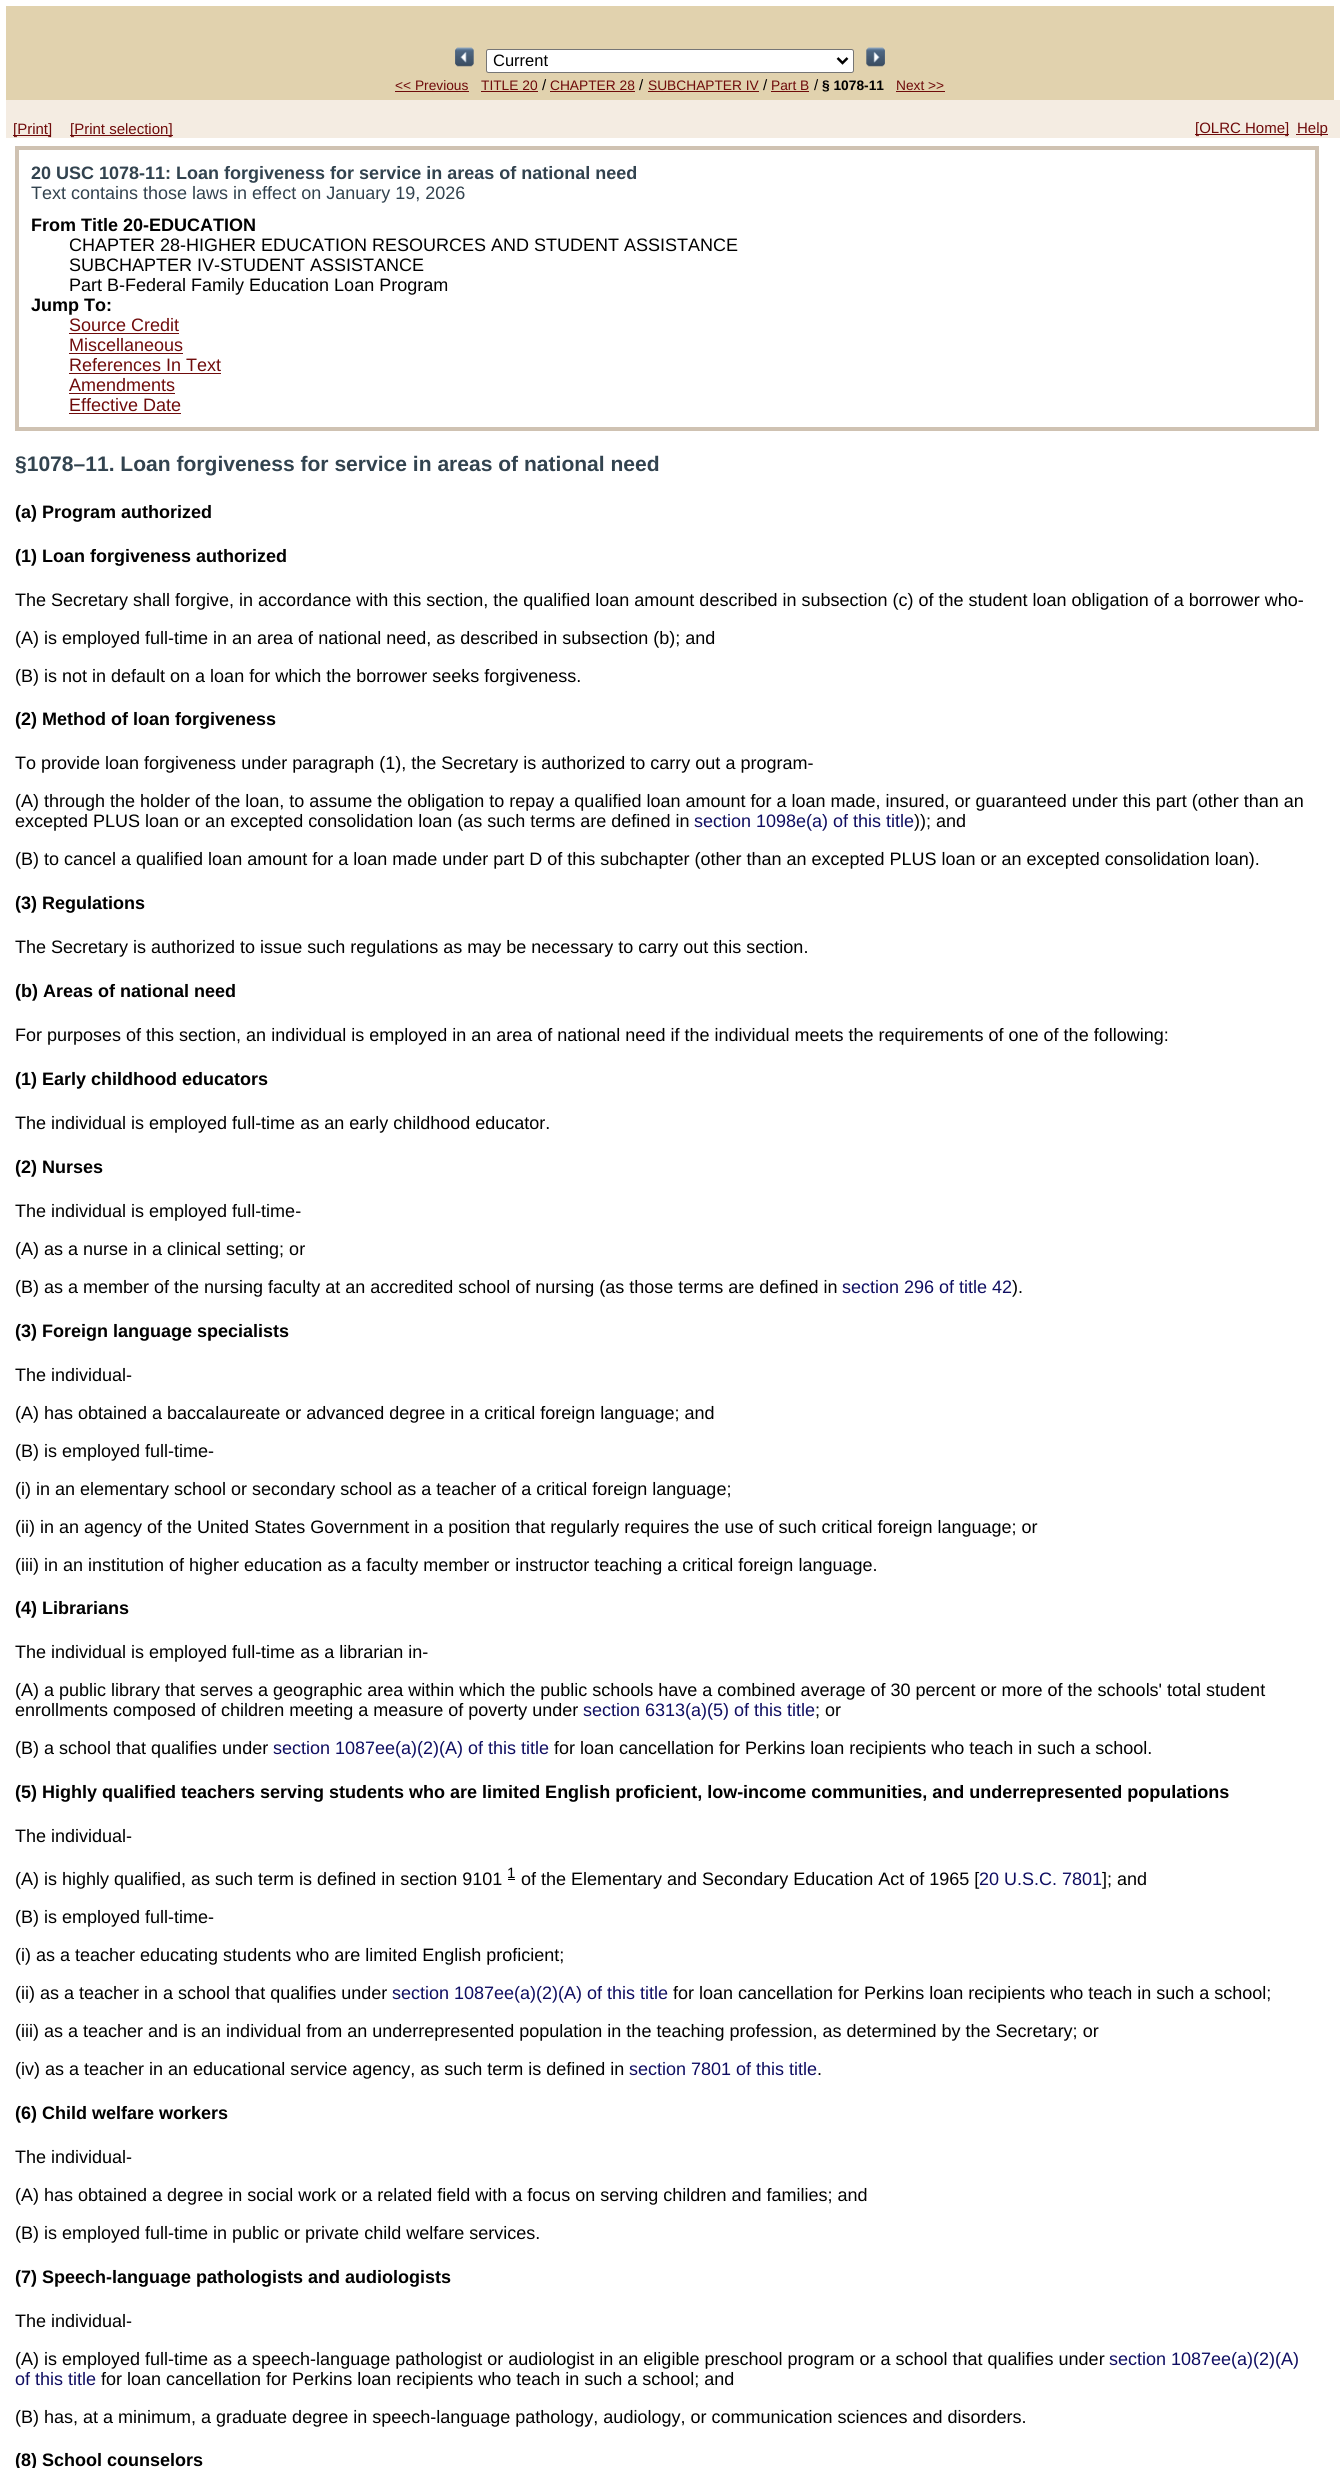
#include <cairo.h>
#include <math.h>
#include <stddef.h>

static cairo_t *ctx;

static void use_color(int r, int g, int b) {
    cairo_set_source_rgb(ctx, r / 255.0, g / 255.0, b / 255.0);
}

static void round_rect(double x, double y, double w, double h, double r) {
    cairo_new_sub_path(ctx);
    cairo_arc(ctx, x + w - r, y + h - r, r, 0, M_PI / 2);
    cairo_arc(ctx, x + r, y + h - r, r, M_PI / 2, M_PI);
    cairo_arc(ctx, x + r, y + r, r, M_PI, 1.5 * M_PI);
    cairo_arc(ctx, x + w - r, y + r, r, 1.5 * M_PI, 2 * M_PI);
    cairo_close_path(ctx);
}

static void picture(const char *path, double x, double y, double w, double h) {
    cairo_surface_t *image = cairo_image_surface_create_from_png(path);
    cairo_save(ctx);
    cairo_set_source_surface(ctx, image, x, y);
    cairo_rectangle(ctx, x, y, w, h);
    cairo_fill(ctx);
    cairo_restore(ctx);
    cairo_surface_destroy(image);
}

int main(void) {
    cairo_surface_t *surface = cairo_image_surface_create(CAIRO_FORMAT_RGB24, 1340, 2473);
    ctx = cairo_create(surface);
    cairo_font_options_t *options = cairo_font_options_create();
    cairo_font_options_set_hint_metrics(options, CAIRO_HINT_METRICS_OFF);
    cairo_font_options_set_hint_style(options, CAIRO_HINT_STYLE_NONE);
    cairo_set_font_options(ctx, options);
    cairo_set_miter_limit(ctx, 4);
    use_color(255, 255, 255);
    cairo_paint(ctx);
    use_color(225, 210, 174);
    cairo_rectangle(ctx, 6, 6, 1328, 94);
    cairo_fill(ctx);
    picture("img1.png", 455, 47, 19, 20);
    use_color(255, 255, 255);
    round_rect(486.5, 49.5, 367, 23, 2);
    cairo_fill_preserve(ctx);
    use_color(118, 118, 118);
    cairo_set_line_width(ctx, 1);
    cairo_stroke(ctx);
    cairo_new_path(ctx);
    cairo_move_to(ctx, 837.5, 58);
    cairo_line_to(ctx, 842.5, 63);
    cairo_line_to(ctx, 847.5, 58);
    use_color(0, 0, 0);
    cairo_set_line_width(ctx, 2.5);
    cairo_stroke(ctx);
    cairo_select_font_face(ctx, "Liberation Sans", CAIRO_FONT_SLANT_NORMAL, CAIRO_FONT_WEIGHT_NORMAL);
    cairo_set_font_size(ctx, 16.5);
    cairo_move_to(ctx, 493, 66);
    cairo_show_text(ctx, "Current");
    picture("img2.png", 866, 47, 19, 20);
    cairo_set_font_size(ctx, 13.75);
    use_color(111, 11, 11);
    cairo_move_to(ctx, 395, 90);
    cairo_show_text(ctx, "<< Previous");
    cairo_rectangle(ctx, 395, 91, 74, 1);
    cairo_fill(ctx);
    cairo_move_to(ctx, 481, 90);
    cairo_show_text(ctx, "TITLE 20");
    cairo_rectangle(ctx, 481, 91, 57, 1);
    cairo_fill(ctx);
    cairo_set_font_size(ctx, 15);
    use_color(0, 0, 0);
    cairo_move_to(ctx, 542, 90);
    cairo_show_text(ctx, "/");
    cairo_set_font_size(ctx, 13.75);
    use_color(111, 11, 11);
    cairo_move_to(ctx, 550, 90);
    cairo_show_text(ctx, "CHAPTER 28");
    cairo_rectangle(ctx, 550, 91, 85, 1);
    cairo_fill(ctx);
    cairo_set_font_size(ctx, 15);
    use_color(0, 0, 0);
    cairo_move_to(ctx, 639, 90);
    cairo_show_text(ctx, "/");
    cairo_set_font_size(ctx, 13.75);
    use_color(111, 11, 11);
    cairo_move_to(ctx, 648, 90);
    cairo_show_text(ctx, "SUBCHAPTER IV");
    cairo_rectangle(ctx, 648, 91, 111, 1);
    cairo_fill(ctx);
    cairo_set_font_size(ctx, 15);
    use_color(0, 0, 0);
    cairo_move_to(ctx, 763, 90);
    cairo_show_text(ctx, "/");
    cairo_set_font_size(ctx, 13.75);
    use_color(111, 11, 11);
    cairo_move_to(ctx, 771, 90);
    cairo_show_text(ctx, "Part B");
    cairo_rectangle(ctx, 771, 91, 38, 1);
    cairo_fill(ctx);
    cairo_set_font_size(ctx, 15);
    use_color(0, 0, 0);
    cairo_move_to(ctx, 814, 90);
    cairo_show_text(ctx, "/");
    cairo_select_font_face(ctx, "Liberation Sans", CAIRO_FONT_SLANT_NORMAL, CAIRO_FONT_WEIGHT_BOLD);
    cairo_set_font_size(ctx, 13.75);
    cairo_move_to(ctx, 822, 90);
    cairo_show_text(ctx, "§ 1078-11");
    cairo_select_font_face(ctx, "Liberation Sans", CAIRO_FONT_SLANT_NORMAL, CAIRO_FONT_WEIGHT_NORMAL);
    use_color(111, 11, 11);
    cairo_move_to(ctx, 896, 90);
    cairo_show_text(ctx, "Next >>");
    cairo_rectangle(ctx, 896, 91, 49, 1);
    cairo_fill(ctx);
    use_color(244, 236, 226);
    cairo_rectangle(ctx, 6, 100, 1334, 38);
    cairo_fill(ctx);
    use_color(111, 11, 11);
    cairo_rectangle(ctx, 13, 135, 38, 1);
    cairo_fill(ctx);
    cairo_set_font_size(ctx, 15);
    cairo_move_to(ctx, 13, 134);
    cairo_show_text(ctx, "[Print]");
    cairo_rectangle(ctx, 70, 135, 103, 1);
    cairo_fill(ctx);
    cairo_move_to(ctx, 70, 134);
    cairo_show_text(ctx, "[Print selection]");
    cairo_rectangle(ctx, 1195, 134, 94, 1);
    cairo_fill(ctx);
    cairo_move_to(ctx, 1195, 133);
    cairo_show_text(ctx, "[OLRC Home]");
    cairo_rectangle(ctx, 1296, 134, 32, 1);
    cairo_fill(ctx);
    cairo_move_to(ctx, 1297, 133);
    cairo_show_text(ctx, "Help");
    cairo_rectangle(ctx, 17, 148, 1300, 281);
    use_color(207, 194, 178);
    cairo_set_line_width(ctx, 4);
    cairo_stroke(ctx);
    cairo_select_font_face(ctx, "Liberation Sans", CAIRO_FONT_SLANT_NORMAL, CAIRO_FONT_WEIGHT_BOLD);
    cairo_set_font_size(ctx, 18);
    use_color(50, 67, 79);
    cairo_move_to(ctx, 31, 179);
    cairo_show_text(ctx, "20 USC 1078-11: Loan forgiveness for service in areas of national need");
    cairo_select_font_face(ctx, "Liberation Sans", CAIRO_FONT_SLANT_NORMAL, CAIRO_FONT_WEIGHT_NORMAL);
    cairo_move_to(ctx, 31, 199);
    cairo_show_text(ctx, "Text contains those laws in effect on January 19, 2026");
    cairo_select_font_face(ctx, "Liberation Sans", CAIRO_FONT_SLANT_NORMAL, CAIRO_FONT_WEIGHT_BOLD);
    use_color(0, 0, 0);
    cairo_move_to(ctx, 31, 231);
    cairo_show_text(ctx, "From Title 20-EDUCATION");
    cairo_select_font_face(ctx, "Liberation Sans", CAIRO_FONT_SLANT_NORMAL, CAIRO_FONT_WEIGHT_NORMAL);
    cairo_move_to(ctx, 69, 251);
    cairo_show_text(ctx, "CHAPTER 28-HIGHER EDUCATION RESOURCES AND STUDENT ASSISTANCE");
    cairo_move_to(ctx, 69, 271);
    cairo_show_text(ctx, "SUBCHAPTER IV-STUDENT ASSISTANCE");
    cairo_move_to(ctx, 69, 291);
    cairo_show_text(ctx, "Part B-Federal Family Education Loan Program");
    cairo_select_font_face(ctx, "Liberation Sans", CAIRO_FONT_SLANT_NORMAL, CAIRO_FONT_WEIGHT_BOLD);
    cairo_move_to(ctx, 31, 311);
    cairo_show_text(ctx, "Jump To:");
    cairo_select_font_face(ctx, "Liberation Sans", CAIRO_FONT_SLANT_NORMAL, CAIRO_FONT_WEIGHT_NORMAL);
    use_color(111, 11, 11);
    cairo_move_to(ctx, 69, 331);
    cairo_show_text(ctx, "Source Credit");
    cairo_rectangle(ctx, 69, 333, 110, 1);
    cairo_fill(ctx);
    cairo_move_to(ctx, 69, 351);
    cairo_show_text(ctx, "Miscellaneous");
    cairo_rectangle(ctx, 69, 353, 114, 1);
    cairo_fill(ctx);
    cairo_move_to(ctx, 69, 371);
    cairo_show_text(ctx, "References In Text");
    cairo_rectangle(ctx, 69, 373, 152, 1);
    cairo_fill(ctx);
    cairo_move_to(ctx, 69, 391);
    cairo_show_text(ctx, "Amendments");
    cairo_rectangle(ctx, 69, 393, 106, 1);
    cairo_fill(ctx);
    cairo_move_to(ctx, 69, 411);
    cairo_show_text(ctx, "Effective Date");
    cairo_rectangle(ctx, 69, 413, 112, 1);
    cairo_fill(ctx);
    cairo_select_font_face(ctx, "Liberation Sans", CAIRO_FONT_SLANT_NORMAL, CAIRO_FONT_WEIGHT_BOLD);
    cairo_set_font_size(ctx, 21.05);
    use_color(50, 67, 79);
    cairo_move_to(ctx, 15, 471);
    cairo_show_text(ctx, "§1078–11. Loan forgiveness for service in areas of national need");
    cairo_set_font_size(ctx, 18);
    use_color(0, 0, 0);
    cairo_move_to(ctx, 15, 518);
    cairo_show_text(ctx, "(a) Program authorized");
    cairo_move_to(ctx, 15, 562);
    cairo_show_text(ctx, "(1) Loan forgiveness authorized");
    cairo_select_font_face(ctx, "Liberation Sans", CAIRO_FONT_SLANT_NORMAL, CAIRO_FONT_WEIGHT_NORMAL);
    cairo_move_to(ctx, 15, 606);
    cairo_show_text(ctx, "The Secretary shall forgive, in accordance with this section, the qualified loan amount described in subsection (c) of the student loan obligation of a borrower who-");
    cairo_move_to(ctx, 15, 644);
    cairo_show_text(ctx, "(A) is employed full-time in an area of national need, as described in subsection (b); and");
    cairo_move_to(ctx, 15, 682);
    cairo_show_text(ctx, "(B) is not in default on a loan for which the borrower seeks forgiveness.");
    cairo_select_font_face(ctx, "Liberation Sans", CAIRO_FONT_SLANT_NORMAL, CAIRO_FONT_WEIGHT_BOLD);
    cairo_move_to(ctx, 15, 725);
    cairo_show_text(ctx, "(2) Method of loan forgiveness");
    cairo_select_font_face(ctx, "Liberation Sans", CAIRO_FONT_SLANT_NORMAL, CAIRO_FONT_WEIGHT_NORMAL);
    cairo_move_to(ctx, 15, 769);
    cairo_show_text(ctx, "To provide loan forgiveness under paragraph (1), the Secretary is authorized to carry out a program-");
    cairo_move_to(ctx, 15, 807);
    cairo_show_text(ctx, "(A) through the holder of the loan, to assume the obligation to repay a qualified loan amount for a loan made, insured, or guaranteed under this part (other than an");
    cairo_move_to(ctx, 15, 827);
    cairo_show_text(ctx, "excepted PLUS loan or an excepted consolidation loan (as such terms are defined in");
    use_color(15, 13, 97);
    cairo_move_to(ctx, 694, 827);
    cairo_show_text(ctx, "section 1098e(a) of this title");
    use_color(0, 0, 0);
    cairo_move_to(ctx, 914, 827);
    cairo_show_text(ctx, ")); and");
    cairo_move_to(ctx, 15, 865);
    cairo_show_text(ctx, "(B) to cancel a qualified loan amount for a loan made under part D of this subchapter (other than an excepted PLUS loan or an excepted consolidation loan).");
    cairo_select_font_face(ctx, "Liberation Sans", CAIRO_FONT_SLANT_NORMAL, CAIRO_FONT_WEIGHT_BOLD);
    cairo_move_to(ctx, 15, 909);
    cairo_show_text(ctx, "(3) Regulations");
    cairo_select_font_face(ctx, "Liberation Sans", CAIRO_FONT_SLANT_NORMAL, CAIRO_FONT_WEIGHT_NORMAL);
    cairo_move_to(ctx, 15, 953);
    cairo_show_text(ctx, "The Secretary is authorized to issue such regulations as may be necessary to carry out this section.");
    cairo_select_font_face(ctx, "Liberation Sans", CAIRO_FONT_SLANT_NORMAL, CAIRO_FONT_WEIGHT_BOLD);
    cairo_move_to(ctx, 15, 997);
    cairo_show_text(ctx, "(b) Areas of national need");
    cairo_select_font_face(ctx, "Liberation Sans", CAIRO_FONT_SLANT_NORMAL, CAIRO_FONT_WEIGHT_NORMAL);
    cairo_move_to(ctx, 15, 1041);
    cairo_show_text(ctx, "For purposes of this section, an individual is employed in an area of national need if the individual meets the requirements of one of the following:");
    cairo_select_font_face(ctx, "Liberation Sans", CAIRO_FONT_SLANT_NORMAL, CAIRO_FONT_WEIGHT_BOLD);
    cairo_move_to(ctx, 15, 1085);
    cairo_show_text(ctx, "(1) Early childhood educators");
    cairo_select_font_face(ctx, "Liberation Sans", CAIRO_FONT_SLANT_NORMAL, CAIRO_FONT_WEIGHT_NORMAL);
    cairo_move_to(ctx, 15, 1129);
    cairo_show_text(ctx, "The individual is employed full-time as an early childhood educator.");
    cairo_select_font_face(ctx, "Liberation Sans", CAIRO_FONT_SLANT_NORMAL, CAIRO_FONT_WEIGHT_BOLD);
    cairo_move_to(ctx, 15, 1173);
    cairo_show_text(ctx, "(2) Nurses");
    cairo_select_font_face(ctx, "Liberation Sans", CAIRO_FONT_SLANT_NORMAL, CAIRO_FONT_WEIGHT_NORMAL);
    cairo_move_to(ctx, 15, 1217);
    cairo_show_text(ctx, "The individual is employed full-time-");
    cairo_move_to(ctx, 15, 1255);
    cairo_show_text(ctx, "(A) as a nurse in a clinical setting; or");
    cairo_move_to(ctx, 15, 1293);
    cairo_show_text(ctx, "(B) as a member of the nursing faculty at an accredited school of nursing (as those terms are defined in");
    use_color(15, 13, 97);
    cairo_move_to(ctx, 842, 1293);
    cairo_show_text(ctx, "section 296 of title 42");
    use_color(0, 0, 0);
    cairo_move_to(ctx, 1012, 1293);
    cairo_show_text(ctx, ").");
    cairo_select_font_face(ctx, "Liberation Sans", CAIRO_FONT_SLANT_NORMAL, CAIRO_FONT_WEIGHT_BOLD);
    cairo_move_to(ctx, 15, 1337);
    cairo_show_text(ctx, "(3) Foreign language specialists");
    cairo_select_font_face(ctx, "Liberation Sans", CAIRO_FONT_SLANT_NORMAL, CAIRO_FONT_WEIGHT_NORMAL);
    cairo_move_to(ctx, 15, 1381);
    cairo_show_text(ctx, "The individual-");
    cairo_move_to(ctx, 15, 1419);
    cairo_show_text(ctx, "(A) has obtained a baccalaureate or advanced degree in a critical foreign language; and");
    cairo_move_to(ctx, 15, 1457);
    cairo_show_text(ctx, "(B) is employed full-time-");
    cairo_move_to(ctx, 15, 1495);
    cairo_show_text(ctx, "(i) in an elementary school or secondary school as a teacher of a critical foreign language;");
    cairo_move_to(ctx, 15, 1533);
    cairo_show_text(ctx, "(ii) in an agency of the United States Government in a position that regularly requires the use of such critical foreign language; or");
    cairo_move_to(ctx, 15, 1571);
    cairo_show_text(ctx, "(iii) in an institution of higher education as a faculty member or instructor teaching a critical foreign language.");
    cairo_select_font_face(ctx, "Liberation Sans", CAIRO_FONT_SLANT_NORMAL, CAIRO_FONT_WEIGHT_BOLD);
    cairo_move_to(ctx, 15, 1614);
    cairo_show_text(ctx, "(4) Librarians");
    cairo_select_font_face(ctx, "Liberation Sans", CAIRO_FONT_SLANT_NORMAL, CAIRO_FONT_WEIGHT_NORMAL);
    cairo_move_to(ctx, 15, 1658);
    cairo_show_text(ctx, "The individual is employed full-time as a librarian in-");
    cairo_move_to(ctx, 15, 1696);
    cairo_show_text(ctx, "(A) a public library that serves a geographic area within which the public schools have a combined average of 30 percent or more of the schools' total student");
    cairo_move_to(ctx, 15, 1716);
    cairo_show_text(ctx, "enrollments composed of children meeting a measure of poverty under");
    use_color(15, 13, 97);
    cairo_move_to(ctx, 583, 1716);
    cairo_show_text(ctx, "section 6313(a)(5) of this title");
    use_color(0, 0, 0);
    cairo_move_to(ctx, 815, 1716);
    cairo_show_text(ctx, "; or");
    cairo_move_to(ctx, 15, 1754);
    cairo_show_text(ctx, "(B) a school that qualifies under");
    use_color(15, 13, 97);
    cairo_move_to(ctx, 273, 1754);
    cairo_show_text(ctx, "section 1087ee(a)(2)(A) of this title");
    use_color(0, 0, 0);
    cairo_move_to(ctx, 554, 1754);
    cairo_show_text(ctx, "for loan cancellation for Perkins loan recipients who teach in such a school.");
    cairo_select_font_face(ctx, "Liberation Sans", CAIRO_FONT_SLANT_NORMAL, CAIRO_FONT_WEIGHT_BOLD);
    cairo_move_to(ctx, 15, 1798);
    cairo_show_text(ctx, "(5) Highly qualified teachers serving students who are limited English proficient, low-income communities, and underrepresented populations");
    cairo_select_font_face(ctx, "Liberation Sans", CAIRO_FONT_SLANT_NORMAL, CAIRO_FONT_WEIGHT_NORMAL);
    cairo_move_to(ctx, 15, 1842);
    cairo_show_text(ctx, "The individual-");
    cairo_move_to(ctx, 15, 1885);
    cairo_show_text(ctx, "(A) is highly qualified, as such term is defined in section 9101");
    cairo_set_font_size(ctx, 15);
    cairo_move_to(ctx, 507, 1878);
    cairo_show_text(ctx, "1");
    cairo_rectangle(ctx, 508, 1879, 7, 1);
    cairo_fill(ctx);
    cairo_set_font_size(ctx, 18);
    cairo_move_to(ctx, 521, 1885);
    cairo_show_text(ctx, "of the Elementary and Secondary Education Act of 1965 [");
    use_color(15, 13, 97);
    cairo_move_to(ctx, 979, 1885);
    cairo_show_text(ctx, "20 U.S.C. 7801");
    use_color(0, 0, 0);
    cairo_move_to(ctx, 1102, 1885);
    cairo_show_text(ctx, "]; and");
    cairo_move_to(ctx, 15, 1923);
    cairo_show_text(ctx, "(B) is employed full-time-");
    cairo_move_to(ctx, 15, 1961);
    cairo_show_text(ctx, "(i) as a teacher educating students who are limited English proficient;");
    cairo_move_to(ctx, 15, 1999);
    cairo_show_text(ctx, "(ii) as a teacher in a school that qualifies under");
    use_color(15, 13, 97);
    cairo_move_to(ctx, 392, 1999);
    cairo_show_text(ctx, "section 1087ee(a)(2)(A) of this title");
    use_color(0, 0, 0);
    cairo_move_to(ctx, 673, 1999);
    cairo_show_text(ctx, "for loan cancellation for Perkins loan recipients who teach in such a school;");
    cairo_move_to(ctx, 15, 2037);
    cairo_show_text(ctx, "(iii) as a teacher and is an individual from an underrepresented population in the teaching profession, as determined by the Secretary; or");
    cairo_move_to(ctx, 15, 2075);
    cairo_show_text(ctx, "(iv) as a teacher in an educational service agency, as such term is defined in");
    use_color(15, 13, 97);
    cairo_move_to(ctx, 629, 2075);
    cairo_show_text(ctx, "section 7801 of this title");
    use_color(0, 0, 0);
    cairo_move_to(ctx, 817, 2075);
    cairo_show_text(ctx, ".");
    cairo_select_font_face(ctx, "Liberation Sans", CAIRO_FONT_SLANT_NORMAL, CAIRO_FONT_WEIGHT_BOLD);
    cairo_move_to(ctx, 15, 2119);
    cairo_show_text(ctx, "(6) Child welfare workers");
    cairo_select_font_face(ctx, "Liberation Sans", CAIRO_FONT_SLANT_NORMAL, CAIRO_FONT_WEIGHT_NORMAL);
    cairo_move_to(ctx, 15, 2163);
    cairo_show_text(ctx, "The individual-");
    cairo_move_to(ctx, 15, 2201);
    cairo_show_text(ctx, "(A) has obtained a degree in social work or a related field with a focus on serving children and families; and");
    cairo_move_to(ctx, 15, 2239);
    cairo_show_text(ctx, "(B) is employed full-time in public or private child welfare services.");
    cairo_select_font_face(ctx, "Liberation Sans", CAIRO_FONT_SLANT_NORMAL, CAIRO_FONT_WEIGHT_BOLD);
    cairo_move_to(ctx, 15, 2283);
    cairo_show_text(ctx, "(7) Speech-language pathologists and audiologists");
    cairo_select_font_face(ctx, "Liberation Sans", CAIRO_FONT_SLANT_NORMAL, CAIRO_FONT_WEIGHT_NORMAL);
    cairo_move_to(ctx, 15, 2327);
    cairo_show_text(ctx, "The individual-");
    cairo_move_to(ctx, 15, 2365);
    cairo_show_text(ctx, "(A) is employed full-time as a speech-language pathologist or audiologist in an eligible preschool program or a school that qualifies under");
    use_color(15, 13, 97);
    cairo_move_to(ctx, 1109, 2365);
    cairo_show_text(ctx, "section 1087ee(a)(2)(A)");
    cairo_move_to(ctx, 15, 2385);
    cairo_show_text(ctx, "of this title");
    use_color(0, 0, 0);
    cairo_move_to(ctx, 101, 2385);
    cairo_show_text(ctx, "for loan cancellation for Perkins loan recipients who teach in such a school; and");
    cairo_move_to(ctx, 15, 2423);
    cairo_show_text(ctx, "(B) has, at a minimum, a graduate degree in speech-language pathology, audiology, or communication sciences and disorders.");
    cairo_save(ctx);
    cairo_rectangle(ctx, 6, 138, 1328, 2330);
    cairo_clip(ctx);
    cairo_select_font_face(ctx, "Liberation Sans", CAIRO_FONT_SLANT_NORMAL, CAIRO_FONT_WEIGHT_BOLD);
    cairo_move_to(ctx, 15, 2466);
    cairo_show_text(ctx, "(8) School counselors");
    cairo_restore(ctx);
    cairo_surface_write_to_png(surface, "result.png");
    cairo_font_options_destroy(options);
    cairo_destroy(ctx);
    cairo_surface_destroy(surface);
    return 0;
}
